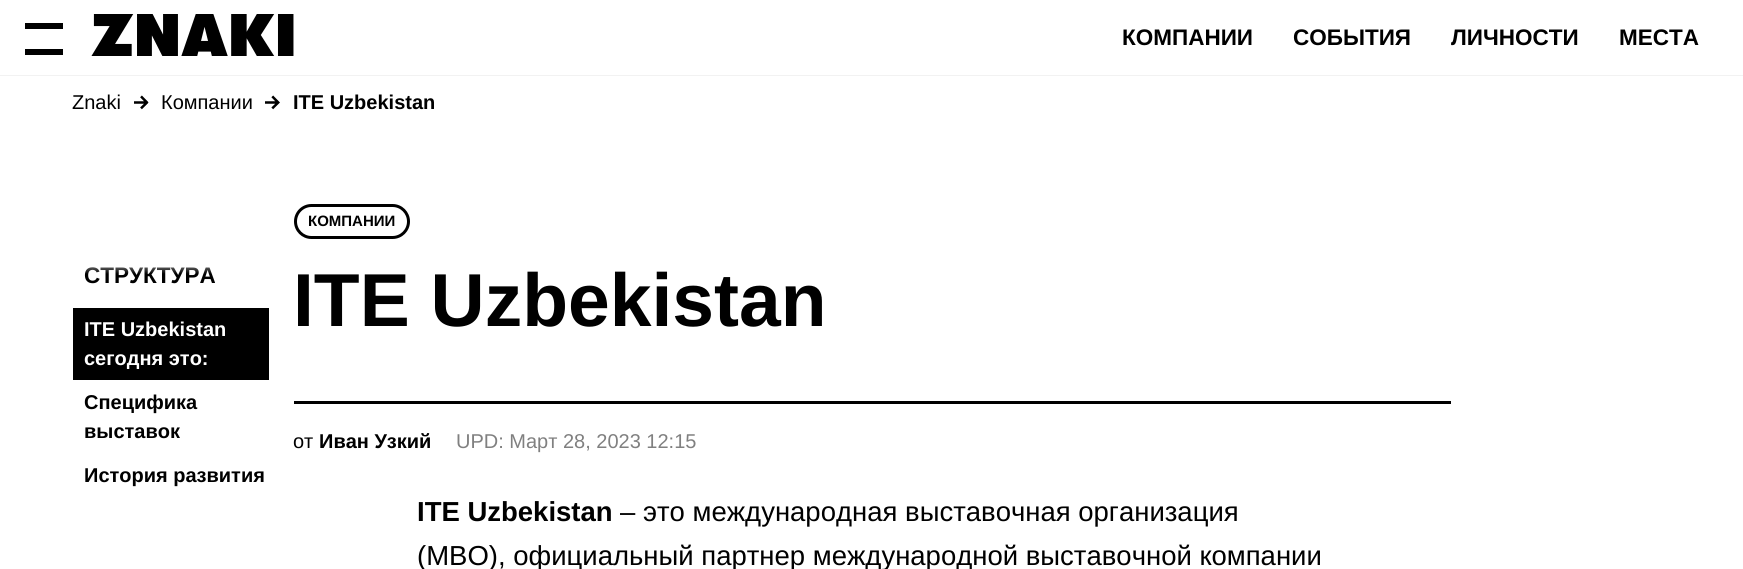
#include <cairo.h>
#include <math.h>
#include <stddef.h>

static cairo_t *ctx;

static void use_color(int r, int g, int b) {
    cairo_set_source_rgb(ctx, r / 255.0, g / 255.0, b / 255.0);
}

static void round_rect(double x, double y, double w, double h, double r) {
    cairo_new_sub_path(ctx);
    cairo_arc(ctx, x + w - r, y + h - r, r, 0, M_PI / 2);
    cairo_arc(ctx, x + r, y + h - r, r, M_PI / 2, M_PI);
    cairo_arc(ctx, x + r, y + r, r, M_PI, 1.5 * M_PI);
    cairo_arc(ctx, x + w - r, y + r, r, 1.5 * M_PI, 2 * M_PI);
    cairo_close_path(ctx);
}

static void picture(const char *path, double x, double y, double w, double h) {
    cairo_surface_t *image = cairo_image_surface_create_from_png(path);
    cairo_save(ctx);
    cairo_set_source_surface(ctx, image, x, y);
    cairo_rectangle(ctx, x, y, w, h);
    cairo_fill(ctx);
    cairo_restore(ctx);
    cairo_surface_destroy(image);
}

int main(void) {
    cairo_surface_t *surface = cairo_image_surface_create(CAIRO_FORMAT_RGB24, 1743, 569);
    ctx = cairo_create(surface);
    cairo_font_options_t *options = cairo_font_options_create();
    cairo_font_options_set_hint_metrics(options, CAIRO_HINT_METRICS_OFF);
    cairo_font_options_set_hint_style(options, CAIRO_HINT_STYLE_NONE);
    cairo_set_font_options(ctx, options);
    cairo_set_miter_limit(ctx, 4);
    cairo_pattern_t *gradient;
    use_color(255, 255, 255);
    cairo_paint(ctx);
    use_color(242, 242, 242);
    cairo_rectangle(ctx, 0, 75, 1743, 1);
    cairo_fill(ctx);
    use_color(0, 0, 0);
    cairo_rectangle(ctx, 25, 23, 38, 6);
    cairo_fill(ctx);
    cairo_rectangle(ctx, 25, 49, 38, 6);
    cairo_fill(ctx);
    picture("img1.png", 91, 14, 203, 42);
    cairo_select_font_face(ctx, "Liberation Sans", CAIRO_FONT_SLANT_NORMAL, CAIRO_FONT_WEIGHT_BOLD);
    cairo_set_font_size(ctx, 22.5);
    cairo_move_to(ctx, 1122, 45);
    cairo_show_text(ctx, "КОМПАНИИ");
    cairo_move_to(ctx, 1293, 45);
    cairo_show_text(ctx, "СОБЫТИЯ");
    cairo_move_to(ctx, 1451, 45);
    cairo_show_text(ctx, "ЛИЧНОСТИ");
    cairo_move_to(ctx, 1619, 45);
    cairo_show_text(ctx, "МЕСТА");
    cairo_select_font_face(ctx, "Liberation Sans", CAIRO_FONT_SLANT_NORMAL, CAIRO_FONT_WEIGHT_NORMAL);
    cairo_set_font_size(ctx, 20);
    cairo_move_to(ctx, 72, 109);
    cairo_show_text(ctx, "Znaki");
    picture("img2.png", 134, 95, 15, 15);
    cairo_move_to(ctx, 161, 109);
    cairo_show_text(ctx, "Компании");
    picture("img3.png", 265, 95, 15, 15);
    cairo_select_font_face(ctx, "Liberation Sans", CAIRO_FONT_SLANT_NORMAL, CAIRO_FONT_WEIGHT_BOLD);
    cairo_move_to(ctx, 293, 109);
    cairo_show_text(ctx, "ITE Uzbekistan");
    cairo_set_font_size(ctx, 22.5);
    cairo_move_to(ctx, 84, 283);
    cairo_show_text(ctx, "СТРУКТУРА");
    gradient = cairo_pattern_create_linear(169, 249, 169, 274);
    cairo_pattern_add_color_stop_rgba(gradient, 0, 1, 1, 1, 1);
    cairo_pattern_add_color_stop_rgba(gradient, 0.2, 1, 1, 1, 1);
    cairo_pattern_add_color_stop_rgba(gradient, 1, 1, 1, 1, 0);
    cairo_set_source(ctx, gradient);
    cairo_pattern_destroy(gradient);
    cairo_rectangle(ctx, 85, 267, 127, 7);
    cairo_fill(ctx);
    use_color(0, 0, 0);
    cairo_rectangle(ctx, 73, 308, 196, 72);
    cairo_fill(ctx);
    cairo_set_font_size(ctx, 20);
    use_color(255, 255, 255);
    cairo_move_to(ctx, 84, 336);
    cairo_show_text(ctx, "ITE Uzbekistan");
    cairo_move_to(ctx, 84, 365);
    cairo_show_text(ctx, "сегодня это:");
    use_color(0, 0, 0);
    cairo_move_to(ctx, 84, 409);
    cairo_show_text(ctx, "Специфика");
    cairo_move_to(ctx, 84, 438);
    cairo_show_text(ctx, "выставок");
    cairo_move_to(ctx, 84, 482);
    cairo_show_text(ctx, "История развития");
    cairo_rectangle(ctx, 294, 401, 1157, 3);
    cairo_fill(ctx);
    round_rect(295.5, 205.5, 113, 32, 16);
    cairo_set_line_width(ctx, 3);
    cairo_stroke(ctx);
    cairo_set_font_size(ctx, 15);
    cairo_move_to(ctx, 308, 226);
    cairo_show_text(ctx, "КОМПАНИИ");
    cairo_set_font_size(ctx, 75);
    cairo_move_to(ctx, 293, 326);
    cairo_show_text(ctx, "ITE Uzbekistan");
    cairo_select_font_face(ctx, "Liberation Sans", CAIRO_FONT_SLANT_NORMAL, CAIRO_FONT_WEIGHT_NORMAL);
    cairo_set_font_size(ctx, 20);
    cairo_move_to(ctx, 293, 448);
    cairo_show_text(ctx, "от");
    cairo_select_font_face(ctx, "Liberation Sans", CAIRO_FONT_SLANT_NORMAL, CAIRO_FONT_WEIGHT_BOLD);
    cairo_move_to(ctx, 319, 448);
    cairo_show_text(ctx, "Иван Узкий");
    cairo_select_font_face(ctx, "Liberation Sans", CAIRO_FONT_SLANT_NORMAL, CAIRO_FONT_WEIGHT_NORMAL);
    use_color(128, 128, 128);
    cairo_move_to(ctx, 456, 448);
    cairo_show_text(ctx, "UPD: Март 28, 2023 12:15");
    cairo_select_font_face(ctx, "Liberation Sans", CAIRO_FONT_SLANT_NORMAL, CAIRO_FONT_WEIGHT_BOLD);
    cairo_set_font_size(ctx, 27.5);
    use_color(0, 0, 0);
    cairo_move_to(ctx, 417, 521);
    cairo_show_text(ctx, "ITE Uzbekistan");
    cairo_select_font_face(ctx, "Liberation Sans", CAIRO_FONT_SLANT_NORMAL, CAIRO_FONT_WEIGHT_NORMAL);
    cairo_move_to(ctx, 620, 521);
    cairo_show_text(ctx, "– это международная выставочная организация");
    cairo_move_to(ctx, 417, 565);
    cairo_show_text(ctx, "(МВО), официальный партнер международной выставочной компании");
    cairo_surface_write_to_png(surface, "result.png");
    cairo_font_options_destroy(options);
    cairo_destroy(ctx);
    cairo_surface_destroy(surface);
    return 0;
}
